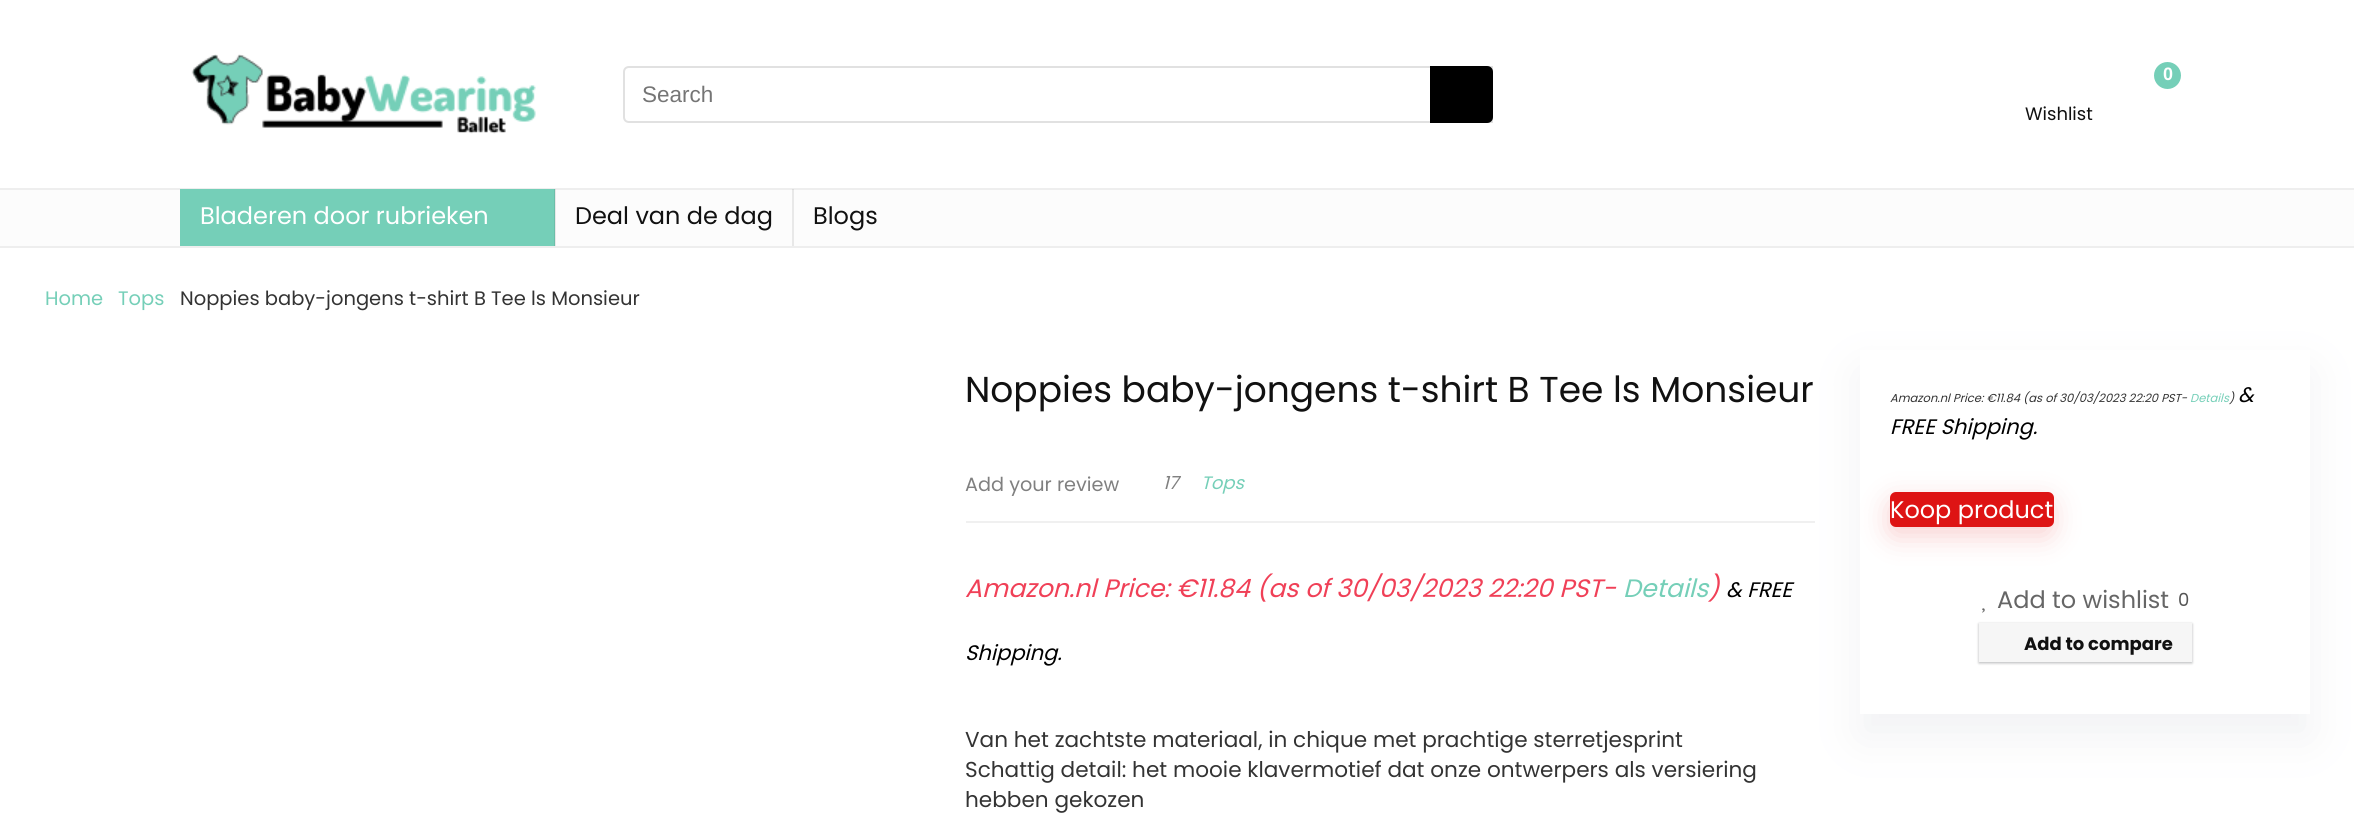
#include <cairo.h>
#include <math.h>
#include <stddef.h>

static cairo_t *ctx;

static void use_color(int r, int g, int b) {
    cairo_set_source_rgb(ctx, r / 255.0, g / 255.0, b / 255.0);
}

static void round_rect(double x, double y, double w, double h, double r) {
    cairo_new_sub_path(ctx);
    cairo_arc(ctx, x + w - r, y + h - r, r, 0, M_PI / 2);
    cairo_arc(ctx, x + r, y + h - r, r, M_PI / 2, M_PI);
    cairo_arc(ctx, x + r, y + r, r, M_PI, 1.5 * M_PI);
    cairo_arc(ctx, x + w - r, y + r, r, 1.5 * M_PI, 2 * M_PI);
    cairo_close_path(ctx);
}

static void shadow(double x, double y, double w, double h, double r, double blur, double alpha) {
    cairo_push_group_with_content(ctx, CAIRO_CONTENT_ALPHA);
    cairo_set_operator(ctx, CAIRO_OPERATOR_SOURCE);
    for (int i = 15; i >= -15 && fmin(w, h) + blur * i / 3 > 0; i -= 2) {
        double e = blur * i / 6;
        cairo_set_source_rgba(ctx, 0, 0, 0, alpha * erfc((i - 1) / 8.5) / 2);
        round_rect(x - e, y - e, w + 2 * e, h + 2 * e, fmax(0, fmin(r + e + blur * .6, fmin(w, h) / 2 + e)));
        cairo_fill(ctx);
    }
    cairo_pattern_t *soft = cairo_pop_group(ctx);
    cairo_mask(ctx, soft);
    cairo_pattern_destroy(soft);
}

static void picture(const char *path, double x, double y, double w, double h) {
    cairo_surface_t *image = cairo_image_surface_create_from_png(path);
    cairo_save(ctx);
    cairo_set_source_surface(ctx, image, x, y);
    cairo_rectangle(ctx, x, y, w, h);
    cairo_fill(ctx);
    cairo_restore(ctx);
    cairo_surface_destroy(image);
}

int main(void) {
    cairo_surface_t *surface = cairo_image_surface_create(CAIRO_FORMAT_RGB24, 2354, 828);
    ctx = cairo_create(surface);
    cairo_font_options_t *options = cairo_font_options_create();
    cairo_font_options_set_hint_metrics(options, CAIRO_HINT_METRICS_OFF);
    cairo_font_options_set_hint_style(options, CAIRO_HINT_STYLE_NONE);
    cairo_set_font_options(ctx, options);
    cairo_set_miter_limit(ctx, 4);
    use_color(255, 255, 255);
    cairo_paint(ctx);
    picture("img1.png", 191, 54, 345, 80);
    cairo_new_path(ctx);
    cairo_move_to(ctx, 629, 67);
    cairo_line_to(ctx, 1492, 67);
    cairo_line_to(ctx, 1492, 122);
    cairo_line_to(ctx, 629, 122);
    cairo_curve_to(ctx, 626, 122, 624, 120, 624, 117);
    cairo_line_to(ctx, 624, 72);
    cairo_curve_to(ctx, 624, 69, 626, 67, 629, 67);
    cairo_close_path(ctx);
    use_color(225, 225, 225);
    cairo_stroke(ctx);
    cairo_select_font_face(ctx, "Liberation Sans", CAIRO_FONT_SLANT_NORMAL, CAIRO_FONT_WEIGHT_NORMAL);
    cairo_set_font_size(ctx, 22.5);
    use_color(117, 117, 117);
    cairo_move_to(ctx, 642, 102);
    cairo_show_text(ctx, "Search");
    use_color(0, 0, 0);
    cairo_new_path(ctx);
    cairo_move_to(ctx, 1430, 66);
    cairo_line_to(ctx, 1487, 66);
    cairo_curve_to(ctx, 1490.5, 66, 1493, 68.5, 1493, 72);
    cairo_line_to(ctx, 1493, 117);
    cairo_curve_to(ctx, 1493, 120.5, 1490.5, 123, 1487, 123);
    cairo_line_to(ctx, 1430, 123);
    cairo_close_path(ctx);
    cairo_fill(ctx);
    use_color(117, 207, 184);
    cairo_arc(ctx, 2167.5, 75.5, 13.5, 0, 2 * M_PI);
    cairo_fill(ctx);
    cairo_select_font_face(ctx, "Liberation Sans", CAIRO_FONT_SLANT_NORMAL, CAIRO_FONT_WEIGHT_BOLD);
    cairo_set_font_size(ctx, 18);
    use_color(255, 255, 255);
    cairo_move_to(ctx, 2163, 80);
    cairo_show_text(ctx, "0");
    cairo_select_font_face(ctx, "Poppins", CAIRO_FONT_SLANT_NORMAL, CAIRO_FONT_WEIGHT_NORMAL);
    use_color(17, 17, 17);
    cairo_move_to(ctx, 2025, 120);
    cairo_show_text(ctx, "Wishlist");
    use_color(252, 252, 252);
    cairo_rectangle(ctx, 0, 190, 2354, 56);
    cairo_fill(ctx);
    use_color(232, 232, 232);
    cairo_rectangle(ctx, 792, 189, 2, 57);
    cairo_fill(ctx);
    cairo_rectangle(ctx, 555, 189, 1, 57);
    cairo_fill(ctx);
    use_color(238, 238, 238);
    cairo_rectangle(ctx, 0, 188, 2354, 2);
    cairo_fill(ctx);
    use_color(219, 219, 219);
    cairo_rectangle(ctx, 792, 189, 2, 1);
    cairo_fill(ctx);
    cairo_rectangle(ctx, 554, 189, 2, 1);
    cairo_fill(ctx);
    use_color(238, 238, 238);
    cairo_rectangle(ctx, 0, 246, 2354, 2);
    cairo_fill(ctx);
    use_color(117, 207, 184);
    cairo_rectangle(ctx, 180, 189, 374, 57);
    cairo_fill(ctx);
    use_color(108, 190, 169);
    cairo_rectangle(ctx, 554, 189, 1, 57);
    cairo_fill(ctx);
    cairo_set_font_size(ctx, 24);
    use_color(255, 255, 255);
    cairo_move_to(ctx, 200, 224);
    cairo_show_text(ctx, "Bladeren door rubrieken");
    use_color(17, 17, 17);
    cairo_move_to(ctx, 575, 224);
    cairo_show_text(ctx, "Deal van de dag");
    cairo_move_to(ctx, 813, 224);
    cairo_show_text(ctx, "Blogs");
    cairo_set_font_size(ctx, 19.5);
    use_color(117, 207, 184);
    cairo_move_to(ctx, 45, 305);
    cairo_show_text(ctx, "Home");
    cairo_move_to(ctx, 118, 305);
    cairo_show_text(ctx, "Tops");
    use_color(51, 51, 51);
    cairo_move_to(ctx, 180, 305);
    cairo_show_text(ctx, "Noppies baby-jongens t-shirt B Tee ls Monsieur");
    cairo_save(ctx);
    cairo_set_fill_rule(ctx, CAIRO_FILL_RULE_EVEN_ODD);
    cairo_new_path(ctx);
    cairo_move_to(ctx, 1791, 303);
    cairo_line_to(ctx, 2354, 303);
    cairo_line_to(ctx, 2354, 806);
    cairo_line_to(ctx, 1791, 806);
    cairo_close_path(ctx);
    cairo_move_to(ctx, 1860, 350);
    cairo_line_to(ctx, 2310, 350);
    cairo_line_to(ctx, 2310, 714);
    cairo_line_to(ctx, 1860, 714);
    cairo_close_path(ctx);
    cairo_clip(ctx);
    use_color(119, 123, 146);
    shadow(1860, 372, 450, 365, 0, 22.5, 0.1);
    cairo_restore(ctx);
    cairo_set_font_size(ctx, 36);
    use_color(17, 17, 17);
    cairo_move_to(ctx, 965, 402);
    cairo_show_text(ctx, "Noppies baby-jongens t-shirt B Tee ls Monsieur");
    cairo_set_font_size(ctx, 19.25);
    use_color(128, 128, 128);
    cairo_move_to(ctx, 965, 491);
    cairo_show_text(ctx, "Add your review");
    cairo_select_font_face(ctx, "Poppins", CAIRO_FONT_SLANT_ITALIC, CAIRO_FONT_WEIGHT_NORMAL);
    cairo_set_font_size(ctx, 18);
    cairo_move_to(ctx, 1163, 489);
    cairo_show_text(ctx, "17");
    use_color(117, 207, 184);
    cairo_move_to(ctx, 1201, 489);
    cairo_show_text(ctx, "Tops");
    use_color(240, 240, 240);
    cairo_rectangle(ctx, 966, 521, 849, 2);
    cairo_fill(ctx);
    cairo_set_font_size(ctx, 25.2);
    use_color(240, 64, 87);
    cairo_move_to(ctx, 965, 597);
    cairo_show_text(ctx, "Amazon.nl Price: €11.84 (as of 30/03/2023 22:20 PST-");
    use_color(117, 207, 184);
    cairo_move_to(ctx, 1623, 597);
    cairo_show_text(ctx, "Details");
    use_color(240, 64, 87);
    cairo_move_to(ctx, 1708, 597);
    cairo_show_text(ctx, ")");
    cairo_set_font_size(ctx, 21);
    use_color(0, 0, 0);
    cairo_move_to(ctx, 1726, 597);
    cairo_show_text(ctx, "& FREE");
    cairo_move_to(ctx, 965, 660);
    cairo_show_text(ctx, "Shipping.");
    cairo_select_font_face(ctx, "Poppins", CAIRO_FONT_SLANT_NORMAL, CAIRO_FONT_WEIGHT_NORMAL);
    cairo_set_font_size(ctx, 21.6);
    use_color(51, 51, 51);
    cairo_move_to(ctx, 965, 747);
    cairo_show_text(ctx, "Van het zachtste materiaal, in chique met prachtige sterretjesprint");
    cairo_move_to(ctx, 965, 777);
    cairo_show_text(ctx, "Schattig detail: het mooie klavermotief dat onze ontwerpers als versiering");
    cairo_move_to(ctx, 965, 807);
    cairo_show_text(ctx, "hebben gekozen");
    cairo_select_font_face(ctx, "Poppins", CAIRO_FONT_SLANT_ITALIC, CAIRO_FONT_WEIGHT_NORMAL);
    cairo_set_font_size(ctx, 11.5);
    cairo_move_to(ctx, 1890, 402);
    cairo_show_text(ctx, "Amazon.nl Price: €11.84 (as of 30/03/2023 22:20 PST-");
    use_color(117, 207, 184);
    cairo_move_to(ctx, 2190, 402);
    cairo_show_text(ctx, "Details");
    use_color(51, 51, 51);
    cairo_move_to(ctx, 2229, 402);
    cairo_show_text(ctx, ")");
    cairo_set_font_size(ctx, 21);
    use_color(0, 0, 0);
    cairo_move_to(ctx, 2238, 402);
    cairo_show_text(ctx, "&");
    cairo_move_to(ctx, 1890, 434);
    cairo_show_text(ctx, "FREE Shipping.");
    use_color(222, 20, 20);
    shadow(1889, 501, 163, 35, 6, 14, 0.2);
    use_color(222, 20, 20);
    round_rect(1890, 492, 164, 35, 6);
    cairo_fill(ctx);
    cairo_select_font_face(ctx, "Poppins", CAIRO_FONT_SLANT_NORMAL, CAIRO_FONT_WEIGHT_NORMAL);
    cairo_set_font_size(ctx, 24);
    use_color(255, 255, 255);
    cairo_move_to(ctx, 1890, 518);
    cairo_show_text(ctx, "Koop product");
    use_color(102, 102, 102);
    cairo_move_to(ctx, 1997, 608);
    cairo_show_text(ctx, "Add to wishlist");
    picture("img2.png", 1982, 608, 3, 5);
    cairo_set_font_size(ctx, 18);
    use_color(85, 85, 85);
    cairo_move_to(ctx, 2178, 606);
    cairo_show_text(ctx, "0");
    use_color(0, 0, 0);
    shadow(1979, 624, 213, 39, 0, 1.5, 0.08);
    use_color(60, 64, 67);
    shadow(1979, 624, 213, 39, 0, 1.5, 0.3);
    use_color(246, 246, 246);
    cairo_rectangle(ctx, 1979, 623, 213, 39);
    cairo_fill(ctx);
    cairo_select_font_face(ctx, "Poppins", CAIRO_FONT_SLANT_NORMAL, CAIRO_FONT_WEIGHT_BOLD);
    use_color(17, 17, 17);
    cairo_move_to(ctx, 2024, 650);
    cairo_show_text(ctx, "Add to compare");
    cairo_surface_write_to_png(surface, "result.png");
    cairo_font_options_destroy(options);
    cairo_destroy(ctx);
    cairo_surface_destroy(surface);
    return 0;
}
